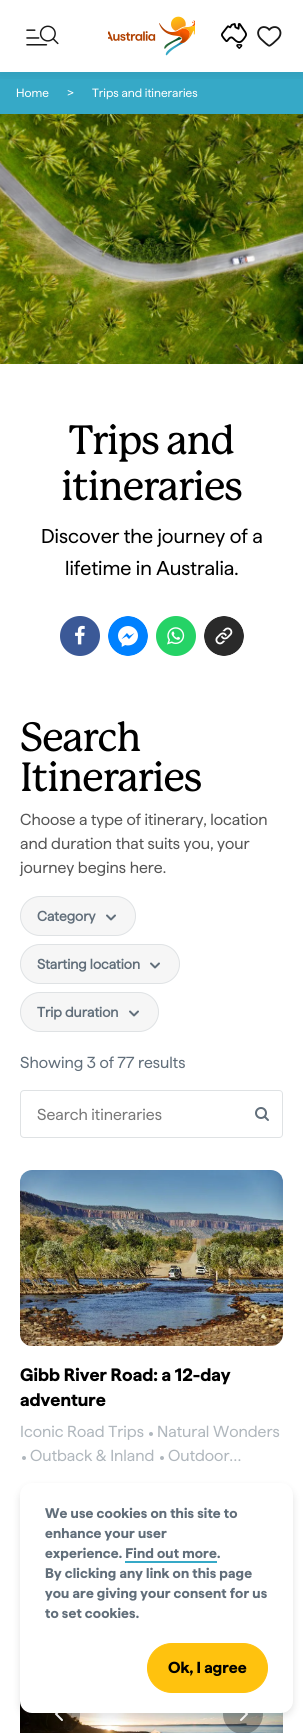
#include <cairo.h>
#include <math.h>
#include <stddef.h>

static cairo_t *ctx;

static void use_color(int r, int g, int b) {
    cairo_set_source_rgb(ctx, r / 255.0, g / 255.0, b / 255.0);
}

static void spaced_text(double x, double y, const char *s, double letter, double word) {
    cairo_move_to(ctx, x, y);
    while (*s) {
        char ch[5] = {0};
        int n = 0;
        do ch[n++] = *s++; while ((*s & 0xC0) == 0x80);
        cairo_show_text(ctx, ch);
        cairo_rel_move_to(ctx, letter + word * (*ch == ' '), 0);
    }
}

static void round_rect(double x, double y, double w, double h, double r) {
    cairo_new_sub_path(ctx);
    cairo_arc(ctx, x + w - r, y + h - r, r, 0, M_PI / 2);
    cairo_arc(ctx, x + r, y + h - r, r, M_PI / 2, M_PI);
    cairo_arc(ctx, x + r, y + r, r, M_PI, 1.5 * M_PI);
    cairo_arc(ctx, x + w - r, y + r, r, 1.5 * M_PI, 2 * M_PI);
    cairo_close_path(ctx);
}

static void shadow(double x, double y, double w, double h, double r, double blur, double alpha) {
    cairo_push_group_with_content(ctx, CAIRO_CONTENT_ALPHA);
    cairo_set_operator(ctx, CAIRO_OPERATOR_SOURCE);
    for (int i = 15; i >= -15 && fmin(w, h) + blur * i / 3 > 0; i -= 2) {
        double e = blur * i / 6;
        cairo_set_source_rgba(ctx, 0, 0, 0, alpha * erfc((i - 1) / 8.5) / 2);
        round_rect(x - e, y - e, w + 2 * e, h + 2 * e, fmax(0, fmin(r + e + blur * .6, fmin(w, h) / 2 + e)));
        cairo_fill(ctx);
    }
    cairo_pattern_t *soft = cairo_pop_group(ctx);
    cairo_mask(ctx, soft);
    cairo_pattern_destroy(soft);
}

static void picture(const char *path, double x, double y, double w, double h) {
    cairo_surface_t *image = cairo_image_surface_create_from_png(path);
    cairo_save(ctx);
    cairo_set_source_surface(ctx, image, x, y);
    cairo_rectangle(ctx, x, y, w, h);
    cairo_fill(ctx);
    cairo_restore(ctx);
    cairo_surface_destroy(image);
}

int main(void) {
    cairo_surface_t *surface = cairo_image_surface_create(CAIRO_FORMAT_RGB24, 303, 1733);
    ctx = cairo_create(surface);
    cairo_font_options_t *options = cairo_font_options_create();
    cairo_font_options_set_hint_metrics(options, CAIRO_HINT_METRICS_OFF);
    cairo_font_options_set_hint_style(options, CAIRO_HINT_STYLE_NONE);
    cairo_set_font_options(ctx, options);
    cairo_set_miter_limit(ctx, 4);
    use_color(255, 255, 255);
    cairo_paint(ctx);
    use_color(54, 169, 199);
    cairo_rectangle(ctx, 0, 72, 303, 42);
    cairo_fill(ctx);
    cairo_save(ctx);
    cairo_rectangle(ctx, 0, 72, 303, 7);
    cairo_clip(ctx);
    use_color(0, 0, 0);
    shadow(0, 1, 303, 72, 0, 7, 0.1);
    cairo_restore(ctx);
    picture("img1.png", 26, 25, 33, 21);
    picture("img2.png", 108, 16, 87, 40);
    picture("img3.png", 221, 23, 26, 26);
    picture("img4.png", 257, 26, 25, 21);
    cairo_select_font_face(ctx, "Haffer", CAIRO_FONT_SLANT_NORMAL, CAIRO_FONT_WEIGHT_NORMAL);
    cairo_set_font_size(ctx, 12);
    use_color(255, 255, 255);
    cairo_move_to(ctx, 16, 97);
    cairo_show_text(ctx, "Home");
    cairo_move_to(ctx, 67, 97);
    cairo_show_text(ctx, ">");
    cairo_move_to(ctx, 92, 97);
    cairo_show_text(ctx, "Trips and itineraries");
    picture("img5.png", 0, 114, 303, 250);
    cairo_select_font_face(ctx, "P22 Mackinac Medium", CAIRO_FONT_SLANT_NORMAL, CAIRO_FONT_WEIGHT_NORMAL);
    cairo_set_font_size(ctx, 40);
    use_color(0, 0, 0);
    spaced_text(69, 454, "Trips and", -1.25, 0);
    spaced_text(61, 500, "itineraries", -1.25, 0);
    cairo_select_font_face(ctx, "Haffer", CAIRO_FONT_SLANT_NORMAL, CAIRO_FONT_WEIGHT_NORMAL);
    cairo_set_font_size(ctx, 20);
    cairo_move_to(ctx, 41, 543);
    cairo_show_text(ctx, "Discover the journey of a");
    cairo_move_to(ctx, 65, 575);
    cairo_show_text(ctx, "lifetime in Australia.");
    use_color(59, 89, 151);
    cairo_new_path(ctx);
    cairo_arc(ctx, 80, 636, 20, 0, 2 * M_PI);
    cairo_fill(ctx);
    picture("img6.png", 75, 625, 10, 20);
    picture("img7.png", 108, 616, 40, 40);
    use_color(37, 211, 102);
    cairo_arc(ctx, 176, 636, 20, 0, 2 * M_PI);
    cairo_fill(ctx);
    picture("img8.png", 167, 627, 18, 18);
    picture("img9.png", 204, 616, 40, 40);
    cairo_select_font_face(ctx, "P22 Mackinac Medium", CAIRO_FONT_SLANT_NORMAL, CAIRO_FONT_WEIGHT_NORMAL);
    cairo_set_font_size(ctx, 40);
    use_color(0, 0, 0);
    spaced_text(20, 751, "Search", -1.25, 0);
    spaced_text(20, 791, "Itineraries", -1.25, 0);
    cairo_select_font_face(ctx, "Haffer", CAIRO_FONT_SLANT_NORMAL, CAIRO_FONT_WEIGHT_NORMAL);
    cairo_set_font_size(ctx, 16);
    use_color(85, 85, 85);
    cairo_move_to(ctx, 20, 825);
    cairo_show_text(ctx, "Choose a type of itinerary, location");
    cairo_move_to(ctx, 20, 849);
    cairo_show_text(ctx, "and duration that suits you, your");
    cairo_move_to(ctx, 20, 873);
    cairo_show_text(ctx, "journey begins here.");
    use_color(246, 246, 246);
    round_rect(20.5, 896.5, 115, 39, 19.5);
    cairo_fill_preserve(ctx);
    use_color(223, 226, 228);
    cairo_set_line_width(ctx, 1);
    cairo_stroke(ctx);
    cairo_select_font_face(ctx, "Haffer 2", CAIRO_FONT_SLANT_NORMAL, CAIRO_FONT_WEIGHT_BOLD);
    cairo_set_font_size(ctx, 14);
    use_color(97, 110, 122);
    cairo_move_to(ctx, 37, 921);
    cairo_show_text(ctx, "Category");
    cairo_new_path(ctx);
    cairo_move_to(ctx, 115, 915.5);
    cairo_line_to(ctx, 111, 919.5);
    cairo_line_to(ctx, 107, 915.5);
    cairo_set_line_width(ctx, 2);
    cairo_set_line_cap(ctx, CAIRO_LINE_CAP_ROUND);
    cairo_set_line_join(ctx, CAIRO_LINE_JOIN_ROUND);
    cairo_stroke(ctx);
    use_color(246, 246, 246);
    round_rect(20.5, 944.5, 159, 39, 19.5);
    cairo_fill_preserve(ctx);
    use_color(223, 226, 228);
    cairo_set_line_width(ctx, 1);
    cairo_set_line_cap(ctx, CAIRO_LINE_CAP_BUTT);
    cairo_set_line_join(ctx, CAIRO_LINE_JOIN_MITER);
    cairo_stroke(ctx);
    use_color(97, 110, 122);
    cairo_move_to(ctx, 37, 969);
    cairo_show_text(ctx, "Starting location");
    cairo_new_path(ctx);
    cairo_move_to(ctx, 159, 963.5);
    cairo_line_to(ctx, 155, 967.5);
    cairo_line_to(ctx, 151, 963.5);
    cairo_set_line_width(ctx, 2);
    cairo_set_line_cap(ctx, CAIRO_LINE_CAP_ROUND);
    cairo_set_line_join(ctx, CAIRO_LINE_JOIN_ROUND);
    cairo_stroke(ctx);
    use_color(246, 246, 246);
    round_rect(20.5, 992.5, 138, 39, 19.5);
    cairo_fill_preserve(ctx);
    use_color(223, 226, 228);
    cairo_set_line_width(ctx, 1);
    cairo_set_line_cap(ctx, CAIRO_LINE_CAP_BUTT);
    cairo_set_line_join(ctx, CAIRO_LINE_JOIN_MITER);
    cairo_stroke(ctx);
    use_color(97, 110, 122);
    cairo_move_to(ctx, 37, 1017);
    cairo_show_text(ctx, "Trip duration");
    cairo_new_path(ctx);
    cairo_move_to(ctx, 138, 1011.5);
    cairo_line_to(ctx, 134, 1015.5);
    cairo_line_to(ctx, 130, 1011.5);
    cairo_set_line_width(ctx, 2);
    cairo_set_line_cap(ctx, CAIRO_LINE_CAP_ROUND);
    cairo_set_line_join(ctx, CAIRO_LINE_JOIN_ROUND);
    cairo_stroke(ctx);
    cairo_select_font_face(ctx, "Haffer", CAIRO_FONT_SLANT_NORMAL, CAIRO_FONT_WEIGHT_NORMAL);
    cairo_set_font_size(ctx, 16);
    cairo_move_to(ctx, 20, 1068);
    cairo_show_text(ctx, "Showing 3 of 77 results");
    round_rect(20.5, 1090.5, 262, 47, 3.5);
    use_color(223, 226, 228);
    cairo_set_line_width(ctx, 1);
    cairo_set_line_cap(ctx, CAIRO_LINE_CAP_BUTT);
    cairo_set_line_join(ctx, CAIRO_LINE_JOIN_MITER);
    cairo_stroke(ctx);
    use_color(120, 120, 120);
    cairo_move_to(ctx, 37, 1120);
    cairo_show_text(ctx, "Search itineraries");
    use_color(255, 255, 255);
    cairo_new_path(ctx);
    cairo_move_to(ctx, 242, 1090);
    cairo_line_to(ctx, 279, 1090);
    cairo_curve_to(ctx, 281, 1090, 283, 1092, 283, 1094);
    cairo_line_to(ctx, 283, 1134);
    cairo_curve_to(ctx, 283, 1136, 281, 1138, 279, 1138);
    cairo_line_to(ctx, 242, 1138);
    cairo_close_path(ctx);
    cairo_fill(ctx);
    use_color(223, 226, 228);
    cairo_set_fill_rule(ctx, CAIRO_FILL_RULE_EVEN_ODD);
    cairo_new_path(ctx);
    cairo_move_to(ctx, 242, 1090);
    cairo_line_to(ctx, 279, 1090);
    cairo_curve_to(ctx, 281, 1090, 283, 1092, 283, 1094);
    cairo_line_to(ctx, 283, 1134);
    cairo_curve_to(ctx, 283, 1136, 281, 1138, 279, 1138);
    cairo_line_to(ctx, 242, 1138);
    cairo_close_path(ctx);
    cairo_move_to(ctx, 242, 1091);
    cairo_line_to(ctx, 279, 1091);
    cairo_curve_to(ctx, 281, 1091, 282, 1092, 282, 1094);
    cairo_line_to(ctx, 282, 1134);
    cairo_curve_to(ctx, 282, 1136, 281, 1137, 279, 1137);
    cairo_line_to(ctx, 242, 1137);
    cairo_close_path(ctx);
    cairo_fill(ctx);
    picture("img10.png", 255, 1107, 14, 14);
    picture("img11.png", 20, 1170, 263, 176);
    cairo_select_font_face(ctx, "Haffer", CAIRO_FONT_SLANT_NORMAL, CAIRO_FONT_WEIGHT_BOLD);
    cairo_set_font_size(ctx, 18);
    use_color(0, 0, 0);
    cairo_move_to(ctx, 20, 1381);
    cairo_show_text(ctx, "Gibb River Road: a 12-day");
    cairo_move_to(ctx, 20, 1406);
    cairo_show_text(ctx, "adventure");
    cairo_select_font_face(ctx, "Haffer", CAIRO_FONT_SLANT_NORMAL, CAIRO_FONT_WEIGHT_NORMAL);
    cairo_set_font_size(ctx, 16);
    use_color(176, 183, 189);
    cairo_move_to(ctx, 20, 1437);
    cairo_show_text(ctx, "Iconic Road Trips");
    cairo_new_path(ctx);
    cairo_arc(ctx, 151, 1434, 2, 0, 2 * M_PI);
    cairo_fill(ctx);
    cairo_move_to(ctx, 157, 1437);
    cairo_show_text(ctx, "Natural Wonders");
    cairo_new_path(ctx);
    cairo_arc(ctx, 24, 1458, 2, 0, 2 * M_PI);
    cairo_fill(ctx);
    cairo_move_to(ctx, 30, 1461);
    cairo_show_text(ctx, "Outback & Inland");
    cairo_new_path(ctx);
    cairo_arc(ctx, 162, 1458, 2, 0, 2 * M_PI);
    cairo_fill(ctx);
    cairo_move_to(ctx, 168, 1461);
    cairo_show_text(ctx, "Outdoor…");
    picture("img12.png", 20, 1701, 263, 32);
    cairo_set_source_rgba(ctx, 0, 0, 0, 0.3);
    cairo_arc(ctx, 60, 1714, 20, 0, 2 * M_PI);
    cairo_fill(ctx);
    cairo_new_path(ctx);
    cairo_move_to(ctx, 62, 1720);
    cairo_line_to(ctx, 56, 1714);
    cairo_line_to(ctx, 62, 1708);
    use_color(255, 255, 255);
    cairo_set_line_width(ctx, 2);
    cairo_set_line_cap(ctx, CAIRO_LINE_CAP_ROUND);
    cairo_set_line_join(ctx, CAIRO_LINE_JOIN_ROUND);
    cairo_stroke(ctx);
    cairo_set_source_rgba(ctx, 0, 0, 0, 0.3);
    cairo_arc(ctx, 243, 1714, 20, 0, 2 * M_PI);
    cairo_fill(ctx);
    cairo_new_path(ctx);
    cairo_move_to(ctx, 241, 1708);
    cairo_line_to(ctx, 247, 1714);
    cairo_line_to(ctx, 241, 1720);
    use_color(255, 255, 255);
    cairo_stroke(ctx);
    use_color(17, 17, 17);
    shadow(20, 1487, 273, 230, 12, 4, 0.12);
    use_color(255, 255, 255);
    round_rect(20, 1483, 273, 230, 12);
    cairo_fill(ctx);
    cairo_select_font_face(ctx, "Haffer", CAIRO_FONT_SLANT_NORMAL, CAIRO_FONT_WEIGHT_BOLD);
    cairo_set_font_size(ctx, 14);
    use_color(97, 110, 122);
    spaced_text(45, 1518, "We use cookies on this site to", 0.15, 0);
    spaced_text(45, 1538, "enhance your user", 0.15, 0);
    spaced_text(45, 1558, "experience. Find out more.", 0.15, 0);
    use_color(54, 169, 199);
    cairo_rectangle(ctx, 125, 1561, 92, 2);
    cairo_fill(ctx);
    use_color(97, 110, 122);
    spaced_text(45, 1578, "By clicking any link on this page", 0.15, 0);
    spaced_text(45, 1598, "you are giving your consent for us", 0.15, 0);
    spaced_text(45, 1618, "to set cookies.", 0.15, 0);
    use_color(255, 194, 14);
    round_rect(147.5, 1643.5, 120, 49, 24.5);
    cairo_fill_preserve(ctx);
    cairo_set_line_width(ctx, 1);
    cairo_set_line_cap(ctx, CAIRO_LINE_CAP_BUTT);
    cairo_set_line_join(ctx, CAIRO_LINE_JOIN_MITER);
    cairo_stroke(ctx);
    cairo_set_font_size(ctx, 16);
    use_color(0, 0, 0);
    cairo_move_to(ctx, 168, 1673);
    cairo_show_text(ctx, "Ok, I agree");
    cairo_surface_write_to_png(surface, "result.png");
    cairo_font_options_destroy(options);
    cairo_destroy(ctx);
    cairo_surface_destroy(surface);
    return 0;
}
